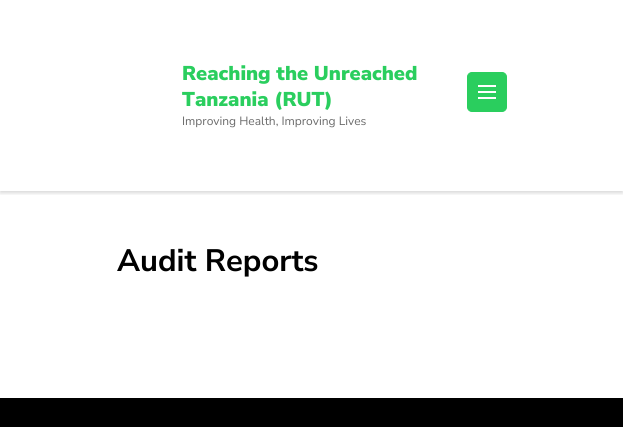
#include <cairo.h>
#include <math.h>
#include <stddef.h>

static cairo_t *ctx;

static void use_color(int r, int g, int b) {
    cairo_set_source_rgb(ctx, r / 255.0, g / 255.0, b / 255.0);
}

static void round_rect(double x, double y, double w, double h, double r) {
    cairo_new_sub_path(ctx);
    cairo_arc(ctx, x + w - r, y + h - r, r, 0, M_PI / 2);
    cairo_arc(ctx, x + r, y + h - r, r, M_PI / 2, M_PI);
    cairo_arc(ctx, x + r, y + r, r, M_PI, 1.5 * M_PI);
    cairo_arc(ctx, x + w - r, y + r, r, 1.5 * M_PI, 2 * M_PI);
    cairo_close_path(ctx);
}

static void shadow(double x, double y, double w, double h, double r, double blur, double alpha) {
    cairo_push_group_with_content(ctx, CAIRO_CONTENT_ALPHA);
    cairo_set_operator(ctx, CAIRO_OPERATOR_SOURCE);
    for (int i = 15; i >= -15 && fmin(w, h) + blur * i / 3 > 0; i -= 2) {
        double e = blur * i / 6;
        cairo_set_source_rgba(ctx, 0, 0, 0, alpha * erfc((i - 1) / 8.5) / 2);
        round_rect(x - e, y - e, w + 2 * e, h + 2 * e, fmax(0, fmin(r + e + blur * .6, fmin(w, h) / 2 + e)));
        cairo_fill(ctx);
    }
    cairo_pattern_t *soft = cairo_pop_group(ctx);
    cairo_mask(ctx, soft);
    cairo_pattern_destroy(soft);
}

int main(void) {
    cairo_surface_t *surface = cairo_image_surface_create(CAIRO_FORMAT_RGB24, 623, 427);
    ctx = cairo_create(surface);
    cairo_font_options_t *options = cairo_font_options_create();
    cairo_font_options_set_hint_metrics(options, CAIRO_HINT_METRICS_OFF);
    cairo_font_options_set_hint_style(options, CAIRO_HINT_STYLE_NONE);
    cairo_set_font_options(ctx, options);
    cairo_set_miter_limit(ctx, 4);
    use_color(255, 255, 255);
    cairo_paint(ctx);
    cairo_save(ctx);
    cairo_rectangle(ctx, 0, 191, 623, 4);
    cairo_clip(ctx);
    use_color(0, 0, 0);
    shadow(0, 2, 623, 191, 0, 2, 0.16);
    cairo_restore(ctx);
    cairo_select_font_face(ctx, "Nunito Sans Black", CAIRO_FONT_SLANT_NORMAL, CAIRO_FONT_WEIGHT_NORMAL);
    cairo_set_font_size(ctx, 20);
    use_color(42, 206, 94);
    cairo_move_to(ctx, 182, 80);
    cairo_show_text(ctx, "Reaching the Unreached");
    cairo_move_to(ctx, 182, 106);
    cairo_show_text(ctx, "Tanzania (RUT)");
    cairo_select_font_face(ctx, "Nunito Sans", CAIRO_FONT_SLANT_NORMAL, CAIRO_FONT_WEIGHT_NORMAL);
    cairo_set_font_size(ctx, 12);
    use_color(106, 106, 106);
    cairo_move_to(ctx, 182, 125);
    cairo_show_text(ctx, "Improving Health, Improving Lives");
    use_color(42, 206, 94);
    round_rect(467.5, 72.5, 39, 39, 4.5);
    cairo_fill_preserve(ctx);
    cairo_set_line_width(ctx, 1);
    cairo_stroke(ctx);
    use_color(255, 255, 255);
    cairo_rectangle(ctx, 478, 85, 18, 2);
    cairo_fill(ctx);
    cairo_rectangle(ctx, 478, 91, 18, 2);
    cairo_fill(ctx);
    cairo_rectangle(ctx, 478, 97, 18, 2);
    cairo_fill(ctx);
    cairo_select_font_face(ctx, "Nunito Sans", CAIRO_FONT_SLANT_NORMAL, CAIRO_FONT_WEIGHT_BOLD);
    cairo_set_font_size(ctx, 31);
    use_color(0, 0, 0);
    cairo_move_to(ctx, 117, 271);
    cairo_show_text(ctx, "Audit Reports");
    cairo_rectangle(ctx, 0, 398, 623, 29);
    cairo_fill(ctx);
    cairo_surface_write_to_png(surface, "result.png");
    cairo_font_options_destroy(options);
    cairo_destroy(ctx);
    cairo_surface_destroy(surface);
    return 0;
}
